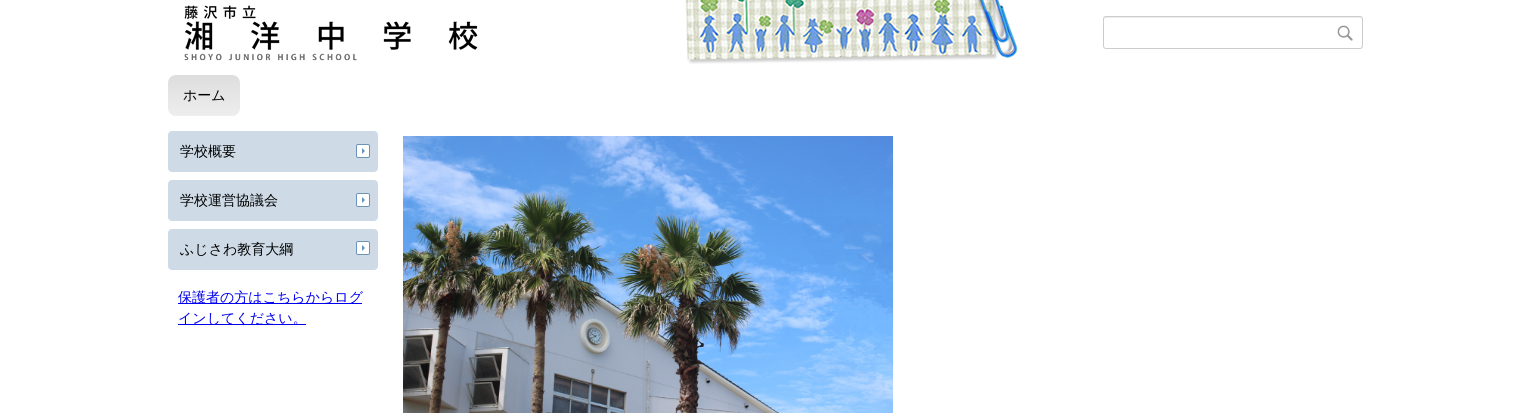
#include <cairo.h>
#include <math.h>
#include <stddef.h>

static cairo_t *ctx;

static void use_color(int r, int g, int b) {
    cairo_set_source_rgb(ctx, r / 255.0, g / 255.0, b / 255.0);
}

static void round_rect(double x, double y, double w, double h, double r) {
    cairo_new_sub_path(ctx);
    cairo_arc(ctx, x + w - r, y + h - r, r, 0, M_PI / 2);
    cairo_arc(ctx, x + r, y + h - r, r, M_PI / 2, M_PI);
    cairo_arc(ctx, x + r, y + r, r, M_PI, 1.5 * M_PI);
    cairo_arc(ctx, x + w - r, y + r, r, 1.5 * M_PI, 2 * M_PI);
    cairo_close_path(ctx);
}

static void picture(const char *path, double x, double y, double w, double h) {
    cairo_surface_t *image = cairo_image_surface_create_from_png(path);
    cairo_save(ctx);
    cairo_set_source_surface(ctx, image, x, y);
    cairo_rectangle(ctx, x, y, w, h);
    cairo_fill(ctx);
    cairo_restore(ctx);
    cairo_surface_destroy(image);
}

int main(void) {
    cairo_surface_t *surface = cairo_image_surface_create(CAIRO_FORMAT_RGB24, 1525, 413);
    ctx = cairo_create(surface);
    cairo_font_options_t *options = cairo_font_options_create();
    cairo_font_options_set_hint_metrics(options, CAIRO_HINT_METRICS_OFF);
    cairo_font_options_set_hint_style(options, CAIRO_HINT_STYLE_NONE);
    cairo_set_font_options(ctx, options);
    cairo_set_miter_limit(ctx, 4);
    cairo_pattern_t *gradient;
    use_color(255, 255, 255);
    cairo_paint(ctx);
    picture("img1.png", 685, 0, 333, 64);
    picture("img2.png", 184, 5, 294, 56);
    use_color(236, 236, 236);
    cairo_new_path(ctx);
    cairo_move_to(ctx, 1106, 18);
    cairo_line_to(ctx, 1360, 18);
    cairo_curve_to(ctx, 1361, 18, 1362, 19, 1362, 20);
    cairo_line_to(ctx, 1361, 17);
    cairo_line_to(ctx, 1106, 17);
    cairo_curve_to(ctx, 1104, 17, 1104, 19, 1104, 20);
    cairo_curve_to(ctx, 1104, 19, 1105, 18, 1106, 18);
    cairo_close_path(ctx);
    cairo_fill(ctx);
    round_rect(1103.5, 16.5, 259, 32, 2.5);
    use_color(204, 204, 204);
    cairo_set_line_width(ctx, 1);
    cairo_stroke(ctx);
    picture("img3.png", 1337, 25, 16, 16);
    gradient = cairo_pattern_create_linear(204, 75, 204, 116);
    cairo_pattern_add_color_stop_rgba(gradient, 0, 0.867, 0.867, 0.867, 1);
    cairo_pattern_add_color_stop_rgba(gradient, 1, 0.933, 0.933, 0.933, 1);
    cairo_set_source(ctx, gradient);
    cairo_pattern_destroy(gradient);
    round_rect(168, 75, 72, 41, 8);
    cairo_fill(ctx);
    cairo_select_font_face(ctx, "WenQuanYi Zen Hei Medium", CAIRO_FONT_SLANT_NORMAL, CAIRO_FONT_WEIGHT_NORMAL);
    cairo_set_font_size(ctx, 14);
    use_color(0, 0, 0);
    cairo_move_to(ctx, 183, 100);
    cairo_show_text(ctx, "ホーム");
    use_color(206, 219, 231);
    round_rect(168, 131, 210, 41, 4);
    cairo_fill(ctx);
    use_color(0, 0, 0);
    cairo_move_to(ctx, 180, 156);
    cairo_show_text(ctx, "学校概要");
    use_color(255, 255, 255);
    round_rect(356.5, 144.5, 13, 13, 1.5);
    cairo_fill_preserve(ctx);
    use_color(108, 146, 184);
    cairo_stroke(ctx);
    cairo_new_path(ctx);
    cairo_move_to(ctx, 362, 154);
    cairo_line_to(ctx, 362, 148);
    cairo_line_to(ctx, 365, 151);
    cairo_close_path(ctx);
    cairo_fill(ctx);
    use_color(206, 219, 231);
    round_rect(168, 180, 210, 41, 4);
    cairo_fill(ctx);
    use_color(0, 0, 0);
    cairo_move_to(ctx, 180, 205);
    cairo_show_text(ctx, "学校運営協議会");
    use_color(255, 255, 255);
    round_rect(356.5, 193.5, 13, 13, 1.5);
    cairo_fill_preserve(ctx);
    use_color(108, 146, 184);
    cairo_stroke(ctx);
    cairo_new_path(ctx);
    cairo_move_to(ctx, 362, 203);
    cairo_line_to(ctx, 362, 197);
    cairo_line_to(ctx, 365, 200);
    cairo_close_path(ctx);
    cairo_fill(ctx);
    use_color(206, 219, 231);
    round_rect(168, 229, 210, 41, 4);
    cairo_fill(ctx);
    use_color(0, 0, 0);
    cairo_move_to(ctx, 180, 254);
    cairo_show_text(ctx, "ふじさわ教育大綱");
    use_color(255, 255, 255);
    round_rect(356.5, 241.5, 13, 13, 1.5);
    cairo_fill_preserve(ctx);
    use_color(108, 146, 184);
    cairo_stroke(ctx);
    cairo_new_path(ctx);
    cairo_move_to(ctx, 362, 251);
    cairo_line_to(ctx, 362, 245);
    cairo_line_to(ctx, 365, 248);
    cairo_close_path(ctx);
    cairo_fill(ctx);
    use_color(0, 0, 238);
    cairo_rectangle(ctx, 178, 303, 184, 1);
    cairo_fill(ctx);
    cairo_move_to(ctx, 178, 302);
    cairo_show_text(ctx, "保護者の方はこちらからログ");
    cairo_rectangle(ctx, 178, 324, 128, 1);
    cairo_fill(ctx);
    cairo_move_to(ctx, 178, 323);
    cairo_show_text(ctx, "インしてください。");
    picture("img4.png", 403, 136, 490, 277);
    cairo_surface_write_to_png(surface, "result.png");
    cairo_font_options_destroy(options);
    cairo_destroy(ctx);
    cairo_surface_destroy(surface);
    return 0;
}
